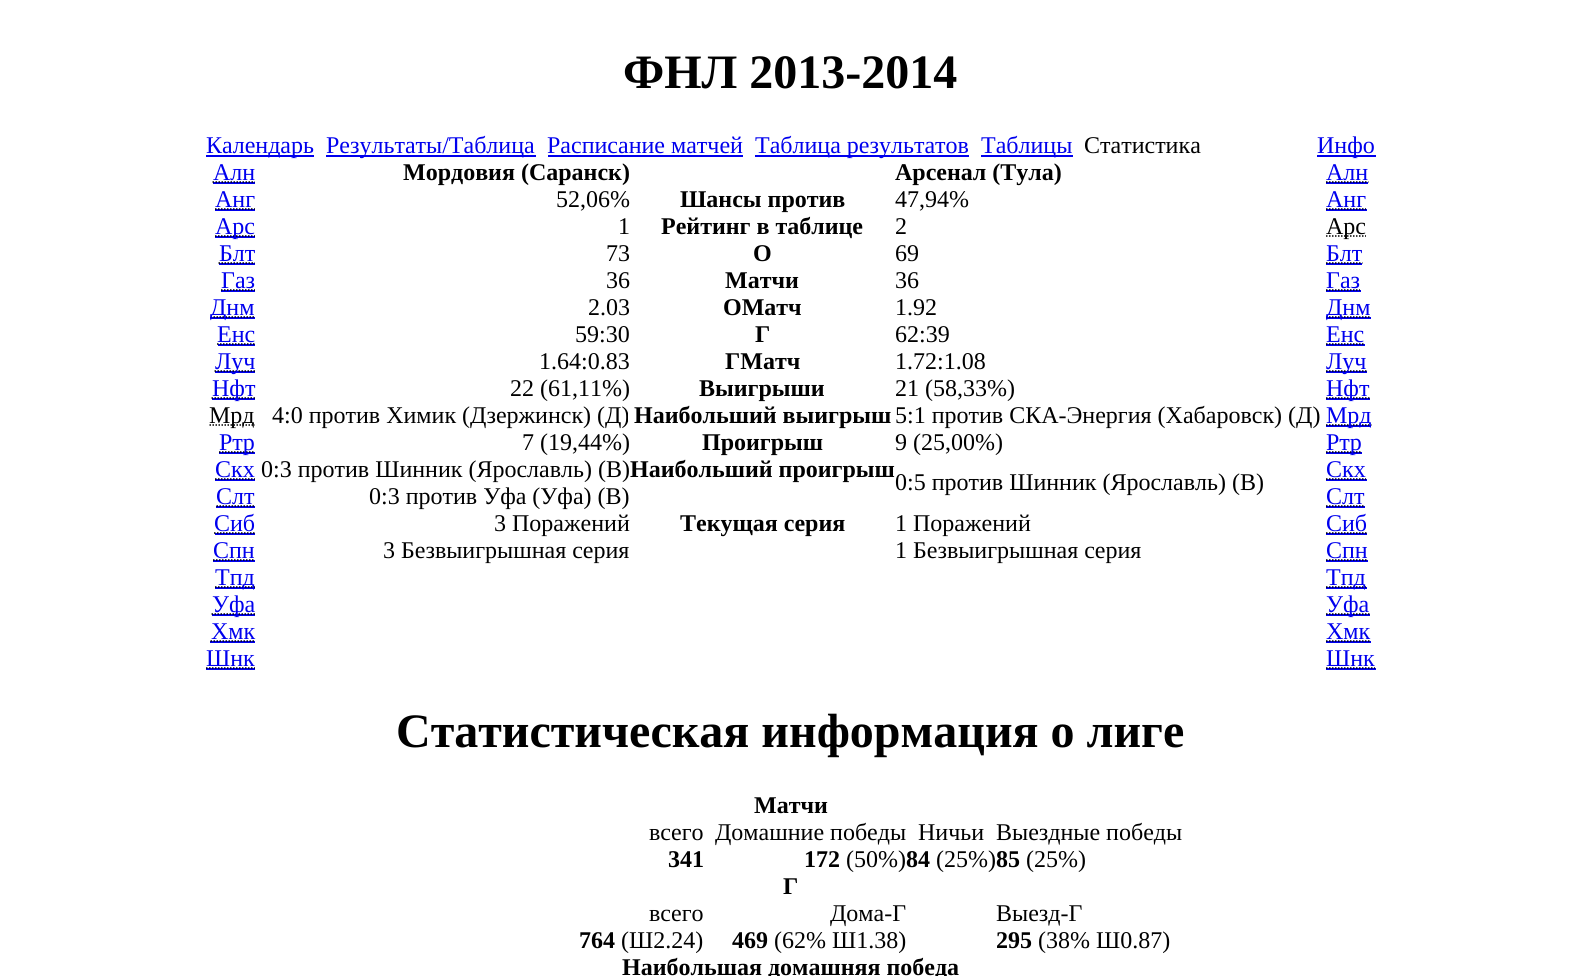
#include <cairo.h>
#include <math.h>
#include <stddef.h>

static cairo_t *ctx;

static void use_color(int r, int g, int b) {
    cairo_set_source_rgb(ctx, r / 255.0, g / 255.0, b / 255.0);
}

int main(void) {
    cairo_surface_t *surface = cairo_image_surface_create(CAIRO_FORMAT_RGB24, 1580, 976);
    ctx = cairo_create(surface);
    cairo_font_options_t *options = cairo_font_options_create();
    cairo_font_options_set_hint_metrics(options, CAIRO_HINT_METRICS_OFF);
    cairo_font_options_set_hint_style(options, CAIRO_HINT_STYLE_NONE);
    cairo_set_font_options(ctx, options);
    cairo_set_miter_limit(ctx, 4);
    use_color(255, 255, 255);
    cairo_paint(ctx);
    cairo_select_font_face(ctx, "Liberation Serif", CAIRO_FONT_SLANT_NORMAL, CAIRO_FONT_WEIGHT_BOLD);
    cairo_set_font_size(ctx, 48);
    use_color(0, 0, 0);
    cairo_move_to(ctx, 623, 88);
    cairo_show_text(ctx, "ФНЛ 2013-2014");
    use_color(0, 0, 238);
    cairo_rectangle(ctx, 206, 155, 108, 2);
    cairo_fill(ctx);
    cairo_select_font_face(ctx, "Liberation Serif", CAIRO_FONT_SLANT_NORMAL, CAIRO_FONT_WEIGHT_NORMAL);
    cairo_set_font_size(ctx, 24);
    cairo_move_to(ctx, 206, 153);
    cairo_show_text(ctx, "Календарь");
    cairo_rectangle(ctx, 326, 155, 210, 2);
    cairo_fill(ctx);
    cairo_move_to(ctx, 326, 153);
    cairo_show_text(ctx, "Результаты/Таблица");
    cairo_move_to(ctx, 547, 153);
    cairo_show_text(ctx, "Расписание матчей");
    cairo_rectangle(ctx, 548, 155, 195, 2);
    cairo_fill(ctx);
    cairo_rectangle(ctx, 755, 155, 214, 2);
    cairo_fill(ctx);
    cairo_move_to(ctx, 755, 153);
    cairo_show_text(ctx, "Таблица результатов");
    cairo_rectangle(ctx, 981, 155, 92, 2);
    cairo_fill(ctx);
    cairo_move_to(ctx, 981, 153);
    cairo_show_text(ctx, "Таблицы");
    use_color(0, 0, 0);
    cairo_move_to(ctx, 1084, 153);
    cairo_show_text(ctx, "Статистика");
    use_color(0, 0, 238);
    cairo_rectangle(ctx, 1317, 155, 59, 2);
    cairo_fill(ctx);
    cairo_move_to(ctx, 1317, 153);
    cairo_show_text(ctx, "Инфо");
    cairo_move_to(ctx, 213, 180);
    cairo_show_text(ctx, "Алн");
    cairo_rectangle(ctx, 213, 182, 42, 2);
    cairo_fill(ctx);
    cairo_new_path(ctx);
    cairo_move_to(ctx, 212.5, 182);
    cairo_line_to(ctx, 255, 182);
    use_color(0, 0, 0);
    cairo_set_line_width(ctx, 1.5);
    cairo_set_dash(ctx, (double[]){1.5, 1.5}, 2, 0);
    cairo_stroke(ctx);
    use_color(0, 0, 238);
    cairo_move_to(ctx, 215, 207);
    cairo_show_text(ctx, "Анг");
    cairo_rectangle(ctx, 215, 209, 40, 2);
    cairo_fill(ctx);
    cairo_new_path(ctx);
    cairo_move_to(ctx, 215, 209);
    cairo_line_to(ctx, 255, 209);
    use_color(0, 0, 0);
    cairo_stroke(ctx);
    use_color(0, 0, 238);
    cairo_rectangle(ctx, 215, 236, 40, 2);
    cairo_fill(ctx);
    cairo_new_path(ctx);
    cairo_move_to(ctx, 215, 236);
    cairo_line_to(ctx, 255, 236);
    use_color(0, 0, 0);
    cairo_stroke(ctx);
    use_color(0, 0, 238);
    cairo_move_to(ctx, 215, 234);
    cairo_show_text(ctx, "Арс");
    cairo_move_to(ctx, 219, 261);
    cairo_show_text(ctx, "Блт");
    cairo_rectangle(ctx, 219, 263, 36, 2);
    cairo_fill(ctx);
    cairo_new_path(ctx);
    cairo_move_to(ctx, 218.5, 263);
    cairo_line_to(ctx, 255, 263);
    use_color(0, 0, 0);
    cairo_stroke(ctx);
    use_color(0, 0, 238);
    cairo_move_to(ctx, 221, 288);
    cairo_show_text(ctx, "Газ");
    cairo_rectangle(ctx, 221, 290, 34, 2);
    cairo_fill(ctx);
    cairo_new_path(ctx);
    cairo_move_to(ctx, 221, 290);
    cairo_line_to(ctx, 255, 290);
    use_color(0, 0, 0);
    cairo_stroke(ctx);
    use_color(0, 0, 238);
    cairo_rectangle(ctx, 210, 317, 45, 2);
    cairo_fill(ctx);
    cairo_new_path(ctx);
    cairo_move_to(ctx, 210.5, 317);
    cairo_line_to(ctx, 255, 317);
    use_color(0, 0, 0);
    cairo_stroke(ctx);
    use_color(0, 0, 238);
    cairo_move_to(ctx, 210, 315);
    cairo_show_text(ctx, "Днм");
    cairo_move_to(ctx, 217, 342);
    cairo_show_text(ctx, "Енс");
    cairo_rectangle(ctx, 218, 344, 37, 2);
    cairo_fill(ctx);
    cairo_new_path(ctx);
    cairo_move_to(ctx, 217, 344);
    cairo_line_to(ctx, 255, 344);
    use_color(0, 0, 0);
    cairo_stroke(ctx);
    use_color(0, 0, 238);
    cairo_rectangle(ctx, 215, 371, 40, 2);
    cairo_fill(ctx);
    cairo_new_path(ctx);
    cairo_move_to(ctx, 214.5, 371);
    cairo_line_to(ctx, 255, 371);
    use_color(0, 0, 0);
    cairo_stroke(ctx);
    use_color(0, 0, 238);
    cairo_move_to(ctx, 215, 369);
    cairo_show_text(ctx, "Луч");
    cairo_rectangle(ctx, 212, 398, 43, 2);
    cairo_fill(ctx);
    cairo_new_path(ctx);
    cairo_move_to(ctx, 211.5, 398);
    cairo_line_to(ctx, 255, 398);
    use_color(0, 0, 0);
    cairo_stroke(ctx);
    use_color(0, 0, 238);
    cairo_move_to(ctx, 212, 396);
    cairo_show_text(ctx, "Нфт");
    cairo_new_path(ctx);
    cairo_move_to(ctx, 209.5, 425);
    cairo_line_to(ctx, 255, 425);
    use_color(0, 0, 0);
    cairo_stroke(ctx);
    cairo_move_to(ctx, 209, 423);
    cairo_show_text(ctx, "Мрд");
    use_color(0, 0, 238);
    cairo_rectangle(ctx, 219, 452, 36, 2);
    cairo_fill(ctx);
    cairo_new_path(ctx);
    cairo_move_to(ctx, 219, 452);
    cairo_line_to(ctx, 255, 452);
    use_color(0, 0, 0);
    cairo_stroke(ctx);
    use_color(0, 0, 238);
    cairo_move_to(ctx, 219, 450);
    cairo_show_text(ctx, "Ртр");
    cairo_move_to(ctx, 215, 477);
    cairo_show_text(ctx, "Скх");
    cairo_rectangle(ctx, 215, 479, 40, 2);
    cairo_fill(ctx);
    cairo_new_path(ctx);
    cairo_move_to(ctx, 215, 479);
    cairo_line_to(ctx, 255, 479);
    use_color(0, 0, 0);
    cairo_stroke(ctx);
    use_color(0, 0, 238);
    cairo_move_to(ctx, 216, 504);
    cairo_show_text(ctx, "Слт");
    cairo_rectangle(ctx, 216, 506, 39, 2);
    cairo_fill(ctx);
    cairo_new_path(ctx);
    cairo_move_to(ctx, 216.5, 506);
    cairo_line_to(ctx, 255, 506);
    use_color(0, 0, 0);
    cairo_stroke(ctx);
    use_color(0, 0, 238);
    cairo_move_to(ctx, 214, 531);
    cairo_show_text(ctx, "Сиб");
    cairo_rectangle(ctx, 215, 533, 40, 2);
    cairo_fill(ctx);
    cairo_new_path(ctx);
    cairo_move_to(ctx, 214, 533);
    cairo_line_to(ctx, 255, 533);
    use_color(0, 0, 0);
    cairo_stroke(ctx);
    use_color(0, 0, 238);
    cairo_move_to(ctx, 213, 558);
    cairo_show_text(ctx, "Спн");
    cairo_rectangle(ctx, 213, 560, 42, 2);
    cairo_fill(ctx);
    cairo_new_path(ctx);
    cairo_move_to(ctx, 213, 560);
    cairo_line_to(ctx, 255, 560);
    use_color(0, 0, 0);
    cairo_stroke(ctx);
    use_color(0, 0, 238);
    cairo_rectangle(ctx, 215, 587, 40, 2);
    cairo_fill(ctx);
    cairo_new_path(ctx);
    cairo_move_to(ctx, 215, 587);
    cairo_line_to(ctx, 255, 587);
    use_color(0, 0, 0);
    cairo_stroke(ctx);
    use_color(0, 0, 238);
    cairo_move_to(ctx, 215, 585);
    cairo_show_text(ctx, "Тпд");
    cairo_rectangle(ctx, 212, 614, 43, 2);
    cairo_fill(ctx);
    cairo_new_path(ctx);
    cairo_move_to(ctx, 211.5, 614);
    cairo_line_to(ctx, 255, 614);
    use_color(0, 0, 0);
    cairo_stroke(ctx);
    use_color(0, 0, 238);
    cairo_move_to(ctx, 212, 612);
    cairo_show_text(ctx, "Уфа");
    cairo_move_to(ctx, 211, 639);
    cairo_show_text(ctx, "Хмк");
    cairo_rectangle(ctx, 210, 641, 45, 2);
    cairo_fill(ctx);
    cairo_new_path(ctx);
    cairo_move_to(ctx, 210.5, 641);
    cairo_line_to(ctx, 255, 641);
    use_color(0, 0, 0);
    cairo_stroke(ctx);
    use_color(0, 0, 238);
    cairo_move_to(ctx, 206, 666);
    cairo_show_text(ctx, "Шнк");
    cairo_rectangle(ctx, 206, 668, 49, 2);
    cairo_fill(ctx);
    cairo_new_path(ctx);
    cairo_move_to(ctx, 206, 668);
    cairo_line_to(ctx, 255, 668);
    use_color(0, 0, 0);
    cairo_stroke(ctx);
    cairo_select_font_face(ctx, "Liberation Serif", CAIRO_FONT_SLANT_NORMAL, CAIRO_FONT_WEIGHT_BOLD);
    cairo_move_to(ctx, 403, 180);
    cairo_show_text(ctx, "Мордовия (Саранск)");
    cairo_move_to(ctx, 895, 180);
    cairo_show_text(ctx, "Арсенал (Тула)");
    cairo_select_font_face(ctx, "Liberation Serif", CAIRO_FONT_SLANT_NORMAL, CAIRO_FONT_WEIGHT_NORMAL);
    cairo_move_to(ctx, 556, 207);
    cairo_show_text(ctx, "52,06%");
    cairo_select_font_face(ctx, "Liberation Serif", CAIRO_FONT_SLANT_NORMAL, CAIRO_FONT_WEIGHT_BOLD);
    cairo_move_to(ctx, 680, 207);
    cairo_show_text(ctx, "Шансы против");
    cairo_select_font_face(ctx, "Liberation Serif", CAIRO_FONT_SLANT_NORMAL, CAIRO_FONT_WEIGHT_NORMAL);
    cairo_move_to(ctx, 895, 207);
    cairo_show_text(ctx, "47,94%");
    cairo_move_to(ctx, 618, 234);
    cairo_show_text(ctx, "1");
    cairo_select_font_face(ctx, "Liberation Serif", CAIRO_FONT_SLANT_NORMAL, CAIRO_FONT_WEIGHT_BOLD);
    cairo_move_to(ctx, 661, 234);
    cairo_show_text(ctx, "Рейтинг в таблице");
    cairo_select_font_face(ctx, "Liberation Serif", CAIRO_FONT_SLANT_NORMAL, CAIRO_FONT_WEIGHT_NORMAL);
    cairo_move_to(ctx, 895, 234);
    cairo_show_text(ctx, "2");
    cairo_move_to(ctx, 606, 261);
    cairo_show_text(ctx, "73");
    cairo_select_font_face(ctx, "Liberation Serif", CAIRO_FONT_SLANT_NORMAL, CAIRO_FONT_WEIGHT_BOLD);
    cairo_move_to(ctx, 753, 261);
    cairo_show_text(ctx, "О");
    cairo_select_font_face(ctx, "Liberation Serif", CAIRO_FONT_SLANT_NORMAL, CAIRO_FONT_WEIGHT_NORMAL);
    cairo_move_to(ctx, 895, 261);
    cairo_show_text(ctx, "69");
    cairo_move_to(ctx, 606, 288);
    cairo_show_text(ctx, "36");
    cairo_select_font_face(ctx, "Liberation Serif", CAIRO_FONT_SLANT_NORMAL, CAIRO_FONT_WEIGHT_BOLD);
    cairo_move_to(ctx, 725, 288);
    cairo_show_text(ctx, "Матчи");
    cairo_select_font_face(ctx, "Liberation Serif", CAIRO_FONT_SLANT_NORMAL, CAIRO_FONT_WEIGHT_NORMAL);
    cairo_move_to(ctx, 895, 288);
    cairo_show_text(ctx, "36");
    cairo_move_to(ctx, 588, 315);
    cairo_show_text(ctx, "2.03");
    cairo_select_font_face(ctx, "Liberation Serif", CAIRO_FONT_SLANT_NORMAL, CAIRO_FONT_WEIGHT_BOLD);
    cairo_move_to(ctx, 723, 315);
    cairo_show_text(ctx, "ОМатч");
    cairo_select_font_face(ctx, "Liberation Serif", CAIRO_FONT_SLANT_NORMAL, CAIRO_FONT_WEIGHT_NORMAL);
    cairo_move_to(ctx, 895, 315);
    cairo_show_text(ctx, "1.92");
    cairo_move_to(ctx, 575, 342);
    cairo_show_text(ctx, "59:30");
    cairo_select_font_face(ctx, "Liberation Serif", CAIRO_FONT_SLANT_NORMAL, CAIRO_FONT_WEIGHT_BOLD);
    cairo_move_to(ctx, 755, 342);
    cairo_show_text(ctx, "Г");
    cairo_select_font_face(ctx, "Liberation Serif", CAIRO_FONT_SLANT_NORMAL, CAIRO_FONT_WEIGHT_NORMAL);
    cairo_move_to(ctx, 895, 342);
    cairo_show_text(ctx, "62:39");
    cairo_move_to(ctx, 539, 369);
    cairo_show_text(ctx, "1.64:0.83");
    cairo_select_font_face(ctx, "Liberation Serif", CAIRO_FONT_SLANT_NORMAL, CAIRO_FONT_WEIGHT_BOLD);
    cairo_move_to(ctx, 725, 369);
    cairo_show_text(ctx, "ГМатч");
    cairo_select_font_face(ctx, "Liberation Serif", CAIRO_FONT_SLANT_NORMAL, CAIRO_FONT_WEIGHT_NORMAL);
    cairo_move_to(ctx, 895, 369);
    cairo_show_text(ctx, "1.72:1.08");
    cairo_move_to(ctx, 510, 396);
    cairo_show_text(ctx, "22 (61,11%)");
    cairo_select_font_face(ctx, "Liberation Serif", CAIRO_FONT_SLANT_NORMAL, CAIRO_FONT_WEIGHT_BOLD);
    cairo_move_to(ctx, 699, 396);
    cairo_show_text(ctx, "Выигрыши");
    cairo_select_font_face(ctx, "Liberation Serif", CAIRO_FONT_SLANT_NORMAL, CAIRO_FONT_WEIGHT_NORMAL);
    cairo_move_to(ctx, 895, 396);
    cairo_show_text(ctx, "21 (58,33%)");
    cairo_move_to(ctx, 272, 423);
    cairo_show_text(ctx, "4:0 против Химик (Дзержинск) (Д)");
    cairo_select_font_face(ctx, "Liberation Serif", CAIRO_FONT_SLANT_NORMAL, CAIRO_FONT_WEIGHT_BOLD);
    cairo_move_to(ctx, 634, 423);
    cairo_show_text(ctx, "Наибольший выигрыш");
    cairo_select_font_face(ctx, "Liberation Serif", CAIRO_FONT_SLANT_NORMAL, CAIRO_FONT_WEIGHT_NORMAL);
    cairo_move_to(ctx, 895, 423);
    cairo_show_text(ctx, "5:1 против СКА-Энергия (Хабаровск) (Д)");
    cairo_move_to(ctx, 522, 450);
    cairo_show_text(ctx, "7 (19,44%)");
    cairo_select_font_face(ctx, "Liberation Serif", CAIRO_FONT_SLANT_NORMAL, CAIRO_FONT_WEIGHT_BOLD);
    cairo_move_to(ctx, 702, 450);
    cairo_show_text(ctx, "Проигрыш");
    cairo_select_font_face(ctx, "Liberation Serif", CAIRO_FONT_SLANT_NORMAL, CAIRO_FONT_WEIGHT_NORMAL);
    cairo_move_to(ctx, 895, 450);
    cairo_show_text(ctx, "9 (25,00%)");
    cairo_move_to(ctx, 261, 477);
    cairo_show_text(ctx, "0:3 против Шинник (Ярославль) (В)");
    cairo_move_to(ctx, 369, 504);
    cairo_show_text(ctx, "0:3 против Уфа (Уфа) (В)");
    cairo_select_font_face(ctx, "Liberation Serif", CAIRO_FONT_SLANT_NORMAL, CAIRO_FONT_WEIGHT_BOLD);
    cairo_move_to(ctx, 630, 477);
    cairo_show_text(ctx, "Наибольший проигрыш");
    cairo_select_font_face(ctx, "Liberation Serif", CAIRO_FONT_SLANT_NORMAL, CAIRO_FONT_WEIGHT_NORMAL);
    cairo_move_to(ctx, 895, 490);
    cairo_show_text(ctx, "0:5 против Шинник (Ярославль) (В)");
    cairo_move_to(ctx, 494, 531);
    cairo_show_text(ctx, "3 Поражений");
    cairo_move_to(ctx, 383, 558);
    cairo_show_text(ctx, "3 Безвыигрышная серия");
    cairo_select_font_face(ctx, "Liberation Serif", CAIRO_FONT_SLANT_NORMAL, CAIRO_FONT_WEIGHT_BOLD);
    cairo_move_to(ctx, 680, 531);
    cairo_show_text(ctx, "Текущая серия");
    cairo_select_font_face(ctx, "Liberation Serif", CAIRO_FONT_SLANT_NORMAL, CAIRO_FONT_WEIGHT_NORMAL);
    cairo_move_to(ctx, 895, 531);
    cairo_show_text(ctx, "1 Поражений");
    cairo_move_to(ctx, 895, 558);
    cairo_show_text(ctx, "1 Безвыигрышная серия");
    use_color(0, 0, 238);
    cairo_move_to(ctx, 1326, 180);
    cairo_show_text(ctx, "Алн");
    cairo_rectangle(ctx, 1326, 182, 42, 2);
    cairo_fill(ctx);
    cairo_new_path(ctx);
    cairo_move_to(ctx, 1326, 182);
    cairo_line_to(ctx, 1368.5, 182);
    use_color(0, 0, 0);
    cairo_stroke(ctx);
    use_color(0, 0, 238);
    cairo_move_to(ctx, 1326, 207);
    cairo_show_text(ctx, "Анг");
    cairo_rectangle(ctx, 1326, 209, 41, 2);
    cairo_fill(ctx);
    cairo_new_path(ctx);
    cairo_move_to(ctx, 1326, 209);
    cairo_line_to(ctx, 1366, 209);
    use_color(0, 0, 0);
    cairo_stroke(ctx);
    cairo_new_path(ctx);
    cairo_move_to(ctx, 1326, 236);
    cairo_line_to(ctx, 1366, 236);
    cairo_stroke(ctx);
    cairo_move_to(ctx, 1326, 234);
    cairo_show_text(ctx, "Арс");
    use_color(0, 0, 238);
    cairo_move_to(ctx, 1326, 261);
    cairo_show_text(ctx, "Блт");
    cairo_rectangle(ctx, 1326, 263, 36, 2);
    cairo_fill(ctx);
    cairo_new_path(ctx);
    cairo_move_to(ctx, 1326, 263);
    cairo_line_to(ctx, 1362.5, 263);
    use_color(0, 0, 0);
    cairo_stroke(ctx);
    use_color(0, 0, 238);
    cairo_move_to(ctx, 1326, 288);
    cairo_show_text(ctx, "Газ");
    cairo_rectangle(ctx, 1326, 290, 35, 2);
    cairo_fill(ctx);
    cairo_new_path(ctx);
    cairo_move_to(ctx, 1326, 290);
    cairo_line_to(ctx, 1360, 290);
    use_color(0, 0, 0);
    cairo_stroke(ctx);
    use_color(0, 0, 238);
    cairo_rectangle(ctx, 1326, 317, 45, 2);
    cairo_fill(ctx);
    cairo_new_path(ctx);
    cairo_move_to(ctx, 1326, 317);
    cairo_line_to(ctx, 1370.5, 317);
    use_color(0, 0, 0);
    cairo_stroke(ctx);
    use_color(0, 0, 238);
    cairo_move_to(ctx, 1326, 315);
    cairo_show_text(ctx, "Днм");
    cairo_move_to(ctx, 1326, 342);
    cairo_show_text(ctx, "Енс");
    cairo_rectangle(ctx, 1326, 344, 39, 2);
    cairo_fill(ctx);
    cairo_new_path(ctx);
    cairo_move_to(ctx, 1326, 344);
    cairo_line_to(ctx, 1364, 344);
    use_color(0, 0, 0);
    cairo_stroke(ctx);
    use_color(0, 0, 238);
    cairo_rectangle(ctx, 1326, 371, 41, 2);
    cairo_fill(ctx);
    cairo_new_path(ctx);
    cairo_move_to(ctx, 1326, 371);
    cairo_line_to(ctx, 1366.5, 371);
    use_color(0, 0, 0);
    cairo_stroke(ctx);
    use_color(0, 0, 238);
    cairo_move_to(ctx, 1326, 369);
    cairo_show_text(ctx, "Луч");
    cairo_rectangle(ctx, 1326, 398, 44, 2);
    cairo_fill(ctx);
    cairo_new_path(ctx);
    cairo_move_to(ctx, 1326, 398);
    cairo_line_to(ctx, 1369.5, 398);
    use_color(0, 0, 0);
    cairo_stroke(ctx);
    use_color(0, 0, 238);
    cairo_move_to(ctx, 1326, 396);
    cairo_show_text(ctx, "Нфт");
    cairo_rectangle(ctx, 1326, 425, 45, 2);
    cairo_fill(ctx);
    cairo_new_path(ctx);
    cairo_move_to(ctx, 1326, 425);
    cairo_line_to(ctx, 1371.5, 425);
    use_color(0, 0, 0);
    cairo_stroke(ctx);
    use_color(0, 0, 238);
    cairo_move_to(ctx, 1326, 423);
    cairo_show_text(ctx, "Мрд");
    cairo_rectangle(ctx, 1326, 452, 36, 2);
    cairo_fill(ctx);
    cairo_new_path(ctx);
    cairo_move_to(ctx, 1326, 452);
    cairo_line_to(ctx, 1362, 452);
    use_color(0, 0, 0);
    cairo_stroke(ctx);
    use_color(0, 0, 238);
    cairo_move_to(ctx, 1326, 450);
    cairo_show_text(ctx, "Ртр");
    cairo_move_to(ctx, 1326, 477);
    cairo_show_text(ctx, "Скх");
    cairo_rectangle(ctx, 1326, 479, 41, 2);
    cairo_fill(ctx);
    cairo_new_path(ctx);
    cairo_move_to(ctx, 1326, 479);
    cairo_line_to(ctx, 1366, 479);
    use_color(0, 0, 0);
    cairo_stroke(ctx);
    use_color(0, 0, 238);
    cairo_move_to(ctx, 1326, 504);
    cairo_show_text(ctx, "Слт");
    cairo_rectangle(ctx, 1326, 506, 39, 2);
    cairo_fill(ctx);
    cairo_new_path(ctx);
    cairo_move_to(ctx, 1326, 506);
    cairo_line_to(ctx, 1364.5, 506);
    use_color(0, 0, 0);
    cairo_stroke(ctx);
    use_color(0, 0, 238);
    cairo_move_to(ctx, 1326, 531);
    cairo_show_text(ctx, "Сиб");
    cairo_rectangle(ctx, 1326, 533, 41, 2);
    cairo_fill(ctx);
    cairo_new_path(ctx);
    cairo_move_to(ctx, 1326, 533);
    cairo_line_to(ctx, 1367, 533);
    use_color(0, 0, 0);
    cairo_stroke(ctx);
    use_color(0, 0, 238);
    cairo_move_to(ctx, 1326, 558);
    cairo_show_text(ctx, "Спн");
    cairo_rectangle(ctx, 1326, 560, 42, 2);
    cairo_fill(ctx);
    cairo_new_path(ctx);
    cairo_move_to(ctx, 1326, 560);
    cairo_line_to(ctx, 1368, 560);
    use_color(0, 0, 0);
    cairo_stroke(ctx);
    use_color(0, 0, 238);
    cairo_rectangle(ctx, 1326, 587, 41, 2);
    cairo_fill(ctx);
    cairo_new_path(ctx);
    cairo_move_to(ctx, 1326, 587);
    cairo_line_to(ctx, 1366, 587);
    use_color(0, 0, 0);
    cairo_stroke(ctx);
    use_color(0, 0, 238);
    cairo_move_to(ctx, 1326, 585);
    cairo_show_text(ctx, "Тпд");
    cairo_rectangle(ctx, 1326, 614, 44, 2);
    cairo_fill(ctx);
    cairo_new_path(ctx);
    cairo_move_to(ctx, 1326, 614);
    cairo_line_to(ctx, 1369.5, 614);
    use_color(0, 0, 0);
    cairo_stroke(ctx);
    use_color(0, 0, 238);
    cairo_move_to(ctx, 1326, 612);
    cairo_show_text(ctx, "Уфа");
    cairo_move_to(ctx, 1326, 639);
    cairo_show_text(ctx, "Хмк");
    cairo_rectangle(ctx, 1326, 641, 45, 2);
    cairo_fill(ctx);
    cairo_new_path(ctx);
    cairo_move_to(ctx, 1326, 641);
    cairo_line_to(ctx, 1370.5, 641);
    use_color(0, 0, 0);
    cairo_stroke(ctx);
    use_color(0, 0, 238);
    cairo_move_to(ctx, 1326, 666);
    cairo_show_text(ctx, "Шнк");
    cairo_rectangle(ctx, 1326, 668, 50, 2);
    cairo_fill(ctx);
    cairo_new_path(ctx);
    cairo_move_to(ctx, 1326, 668);
    cairo_line_to(ctx, 1375, 668);
    use_color(0, 0, 0);
    cairo_stroke(ctx);
    cairo_select_font_face(ctx, "Liberation Serif", CAIRO_FONT_SLANT_NORMAL, CAIRO_FONT_WEIGHT_BOLD);
    cairo_set_font_size(ctx, 48);
    cairo_move_to(ctx, 396, 747);
    cairo_show_text(ctx, "Статистическая информация о лиге");
    cairo_set_font_size(ctx, 24);
    cairo_move_to(ctx, 754, 813);
    cairo_show_text(ctx, "Матчи");
    cairo_select_font_face(ctx, "Liberation Serif", CAIRO_FONT_SLANT_NORMAL, CAIRO_FONT_WEIGHT_NORMAL);
    cairo_move_to(ctx, 649, 840);
    cairo_show_text(ctx, "всего");
    cairo_move_to(ctx, 715, 840);
    cairo_show_text(ctx, "Домашние победы");
    cairo_move_to(ctx, 918, 840);
    cairo_show_text(ctx, "Ничьи");
    cairo_move_to(ctx, 996, 840);
    cairo_show_text(ctx, "Выездные победы");
    cairo_select_font_face(ctx, "Liberation Serif", CAIRO_FONT_SLANT_NORMAL, CAIRO_FONT_WEIGHT_BOLD);
    cairo_move_to(ctx, 668, 867);
    cairo_show_text(ctx, "341");
    cairo_move_to(ctx, 804, 867);
    cairo_show_text(ctx, "172");
    cairo_select_font_face(ctx, "Liberation Serif", CAIRO_FONT_SLANT_NORMAL, CAIRO_FONT_WEIGHT_NORMAL);
    cairo_move_to(ctx, 846, 867);
    cairo_show_text(ctx, "(50%)");
    cairo_select_font_face(ctx, "Liberation Serif", CAIRO_FONT_SLANT_NORMAL, CAIRO_FONT_WEIGHT_BOLD);
    cairo_move_to(ctx, 906, 867);
    cairo_show_text(ctx, "84");
    cairo_select_font_face(ctx, "Liberation Serif", CAIRO_FONT_SLANT_NORMAL, CAIRO_FONT_WEIGHT_NORMAL);
    cairo_move_to(ctx, 936, 867);
    cairo_show_text(ctx, "(25%)");
    cairo_select_font_face(ctx, "Liberation Serif", CAIRO_FONT_SLANT_NORMAL, CAIRO_FONT_WEIGHT_BOLD);
    cairo_move_to(ctx, 996, 867);
    cairo_show_text(ctx, "85");
    cairo_select_font_face(ctx, "Liberation Serif", CAIRO_FONT_SLANT_NORMAL, CAIRO_FONT_WEIGHT_NORMAL);
    cairo_move_to(ctx, 1026, 867);
    cairo_show_text(ctx, "(25%)");
    cairo_select_font_face(ctx, "Liberation Serif", CAIRO_FONT_SLANT_NORMAL, CAIRO_FONT_WEIGHT_BOLD);
    cairo_move_to(ctx, 783, 894);
    cairo_show_text(ctx, "Г");
    cairo_select_font_face(ctx, "Liberation Serif", CAIRO_FONT_SLANT_NORMAL, CAIRO_FONT_WEIGHT_NORMAL);
    cairo_move_to(ctx, 649, 921);
    cairo_show_text(ctx, "всего");
    cairo_move_to(ctx, 830, 921);
    cairo_show_text(ctx, "Дома-Г");
    cairo_move_to(ctx, 996, 921);
    cairo_show_text(ctx, "Выезд-Г");
    cairo_select_font_face(ctx, "Liberation Serif", CAIRO_FONT_SLANT_NORMAL, CAIRO_FONT_WEIGHT_BOLD);
    cairo_move_to(ctx, 579, 948);
    cairo_show_text(ctx, "764");
    cairo_select_font_face(ctx, "Liberation Serif", CAIRO_FONT_SLANT_NORMAL, CAIRO_FONT_WEIGHT_NORMAL);
    cairo_move_to(ctx, 621, 948);
    cairo_show_text(ctx, "(Ш2.24)");
    cairo_select_font_face(ctx, "Liberation Serif", CAIRO_FONT_SLANT_NORMAL, CAIRO_FONT_WEIGHT_BOLD);
    cairo_move_to(ctx, 732, 948);
    cairo_show_text(ctx, "469");
    cairo_select_font_face(ctx, "Liberation Serif", CAIRO_FONT_SLANT_NORMAL, CAIRO_FONT_WEIGHT_NORMAL);
    cairo_move_to(ctx, 774, 948);
    cairo_show_text(ctx, "(62% Ш1.38)");
    cairo_select_font_face(ctx, "Liberation Serif", CAIRO_FONT_SLANT_NORMAL, CAIRO_FONT_WEIGHT_BOLD);
    cairo_move_to(ctx, 996, 948);
    cairo_show_text(ctx, "295");
    cairo_select_font_face(ctx, "Liberation Serif", CAIRO_FONT_SLANT_NORMAL, CAIRO_FONT_WEIGHT_NORMAL);
    cairo_move_to(ctx, 1038, 948);
    cairo_show_text(ctx, "(38% Ш0.87)");
    cairo_select_font_face(ctx, "Liberation Serif", CAIRO_FONT_SLANT_NORMAL, CAIRO_FONT_WEIGHT_BOLD);
    cairo_move_to(ctx, 622, 975);
    cairo_show_text(ctx, "Наибольшая домашняя победа");
    cairo_surface_write_to_png(surface, "result.png");
    cairo_font_options_destroy(options);
    cairo_destroy(ctx);
    cairo_surface_destroy(surface);
    return 0;
}
